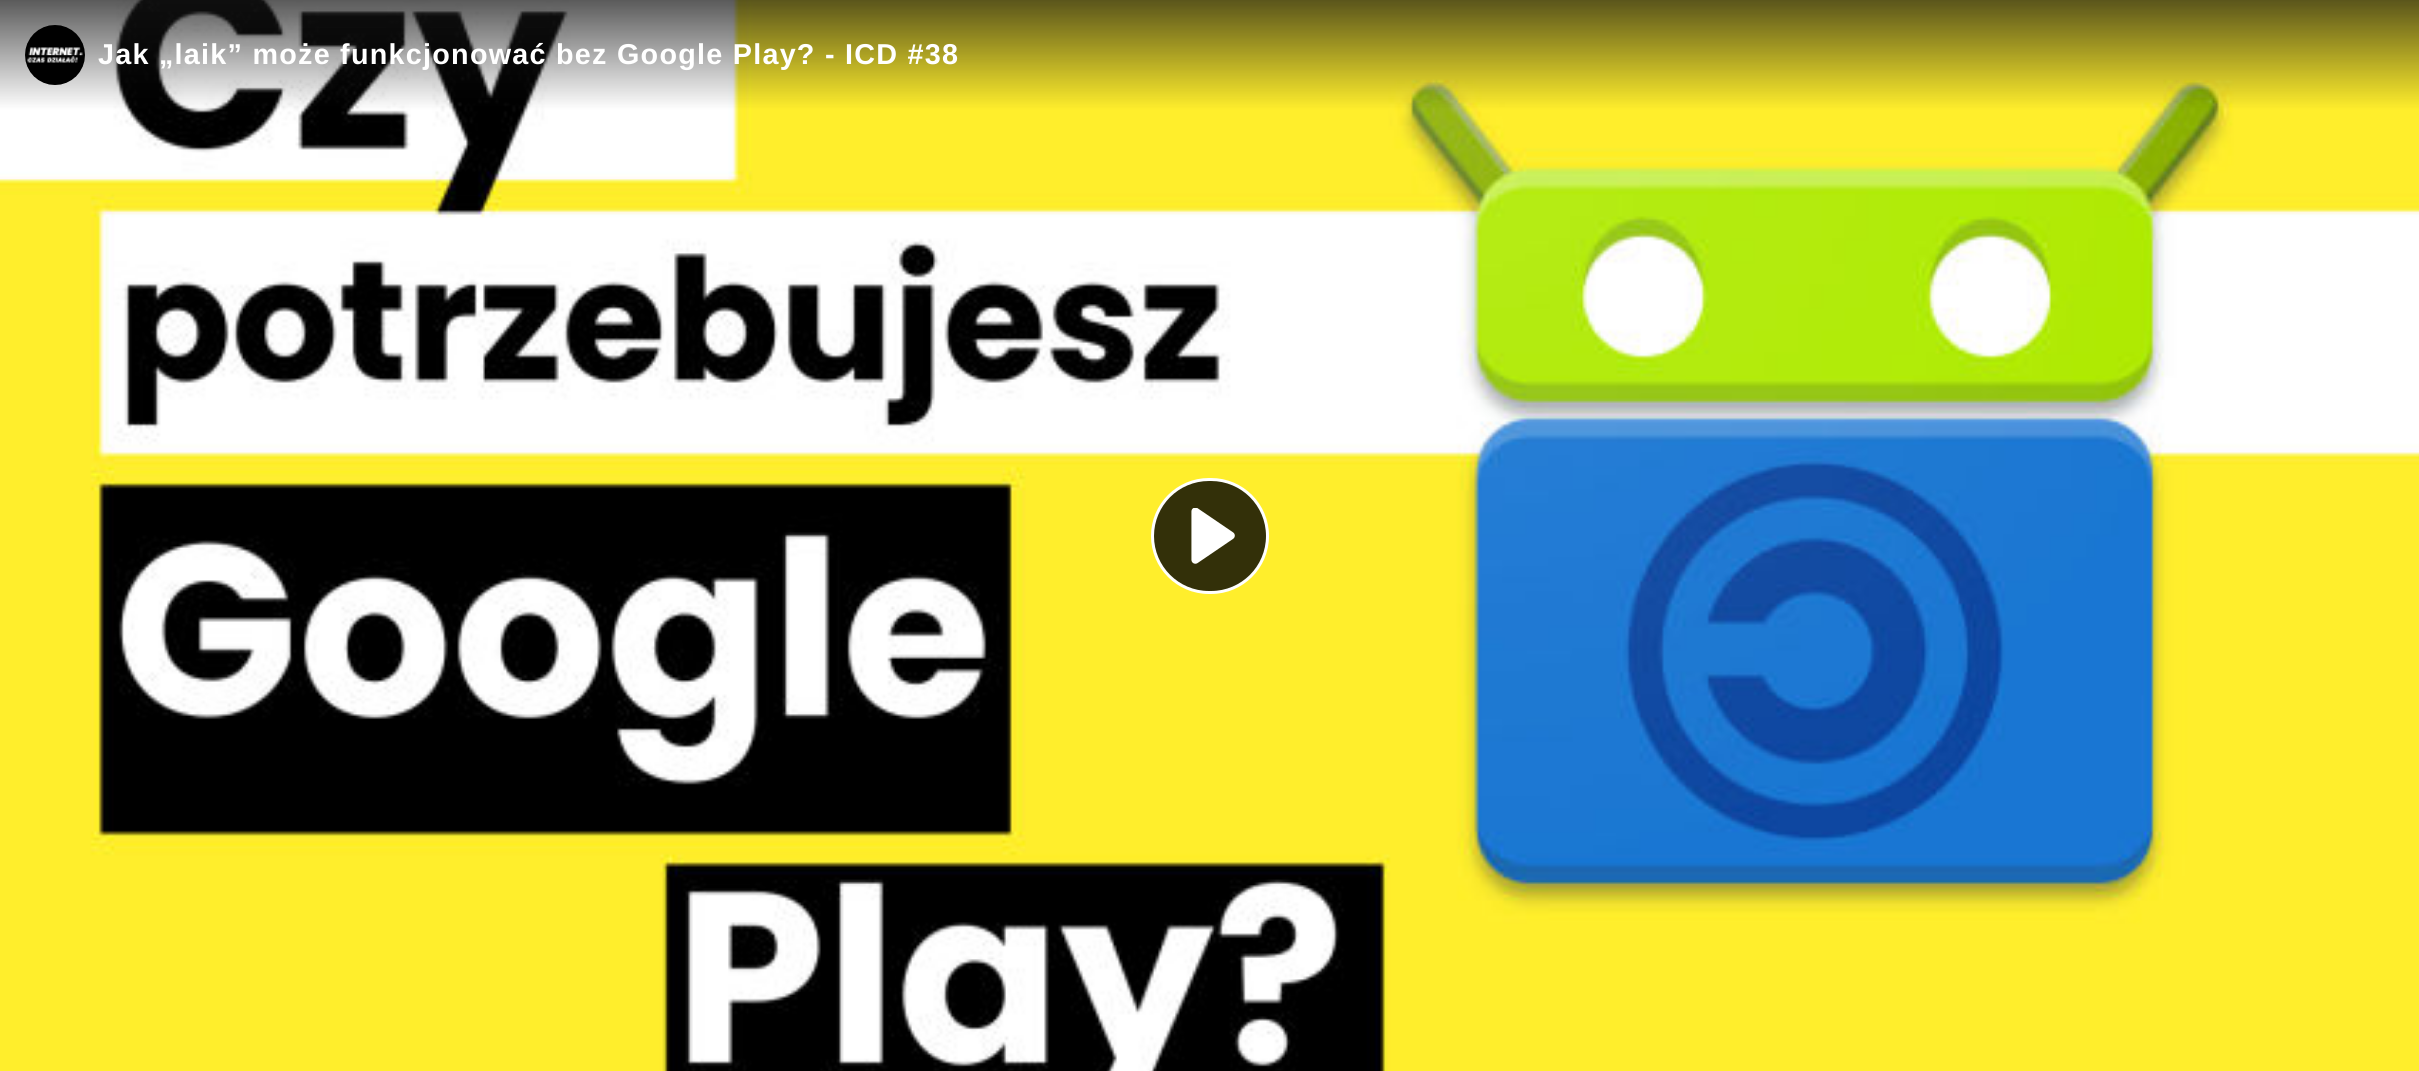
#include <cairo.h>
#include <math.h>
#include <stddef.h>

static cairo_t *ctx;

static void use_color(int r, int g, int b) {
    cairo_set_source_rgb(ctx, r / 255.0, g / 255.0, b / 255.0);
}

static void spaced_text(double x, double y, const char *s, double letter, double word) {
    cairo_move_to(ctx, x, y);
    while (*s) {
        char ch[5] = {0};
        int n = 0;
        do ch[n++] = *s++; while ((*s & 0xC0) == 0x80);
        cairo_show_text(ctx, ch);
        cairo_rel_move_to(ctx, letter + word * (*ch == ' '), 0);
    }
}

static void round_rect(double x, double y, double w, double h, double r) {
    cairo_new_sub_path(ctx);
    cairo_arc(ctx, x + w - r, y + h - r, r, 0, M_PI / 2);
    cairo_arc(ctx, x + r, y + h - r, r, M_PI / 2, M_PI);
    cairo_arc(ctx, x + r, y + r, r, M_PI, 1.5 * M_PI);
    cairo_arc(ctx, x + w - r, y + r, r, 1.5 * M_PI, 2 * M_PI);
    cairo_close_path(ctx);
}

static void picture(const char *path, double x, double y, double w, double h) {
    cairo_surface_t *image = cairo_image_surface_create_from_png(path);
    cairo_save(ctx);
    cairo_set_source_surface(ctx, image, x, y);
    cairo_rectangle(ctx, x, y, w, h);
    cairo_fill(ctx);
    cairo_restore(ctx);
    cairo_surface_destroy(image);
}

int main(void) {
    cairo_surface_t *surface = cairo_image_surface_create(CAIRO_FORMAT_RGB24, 2419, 1071);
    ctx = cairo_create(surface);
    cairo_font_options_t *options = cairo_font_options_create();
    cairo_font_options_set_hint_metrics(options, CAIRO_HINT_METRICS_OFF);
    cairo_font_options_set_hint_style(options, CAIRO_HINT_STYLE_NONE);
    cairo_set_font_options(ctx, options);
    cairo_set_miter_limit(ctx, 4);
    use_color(255, 255, 255);
    cairo_paint(ctx);
    picture("img1.png", 0, 0, 2419, 1071);
    picture("img2.png", 25, 25, 60, 60);
    cairo_select_font_face(ctx, "Liberation Sans", CAIRO_FONT_SLANT_NORMAL, CAIRO_FONT_WEIGHT_BOLD);
    cairo_set_font_size(ctx, 28.75);
    use_color(255, 255, 255);
    spaced_text(98, 64, "Jak „laik” może funkcjonować bez Google Play? - ICD #38", 1.25, 0);
    use_color(51, 48, 9);
    round_rect(1152.5, 479.5, 115, 113, 56.5);
    cairo_fill_preserve(ctx);
    use_color(255, 255, 255);
    cairo_set_line_width(ctx, 3);
    cairo_stroke(ctx);
    picture("img3.png", 1191, 508, 44, 56);
    cairo_surface_write_to_png(surface, "result.png");
    cairo_font_options_destroy(options);
    cairo_destroy(ctx);
    cairo_surface_destroy(surface);
    return 0;
}
